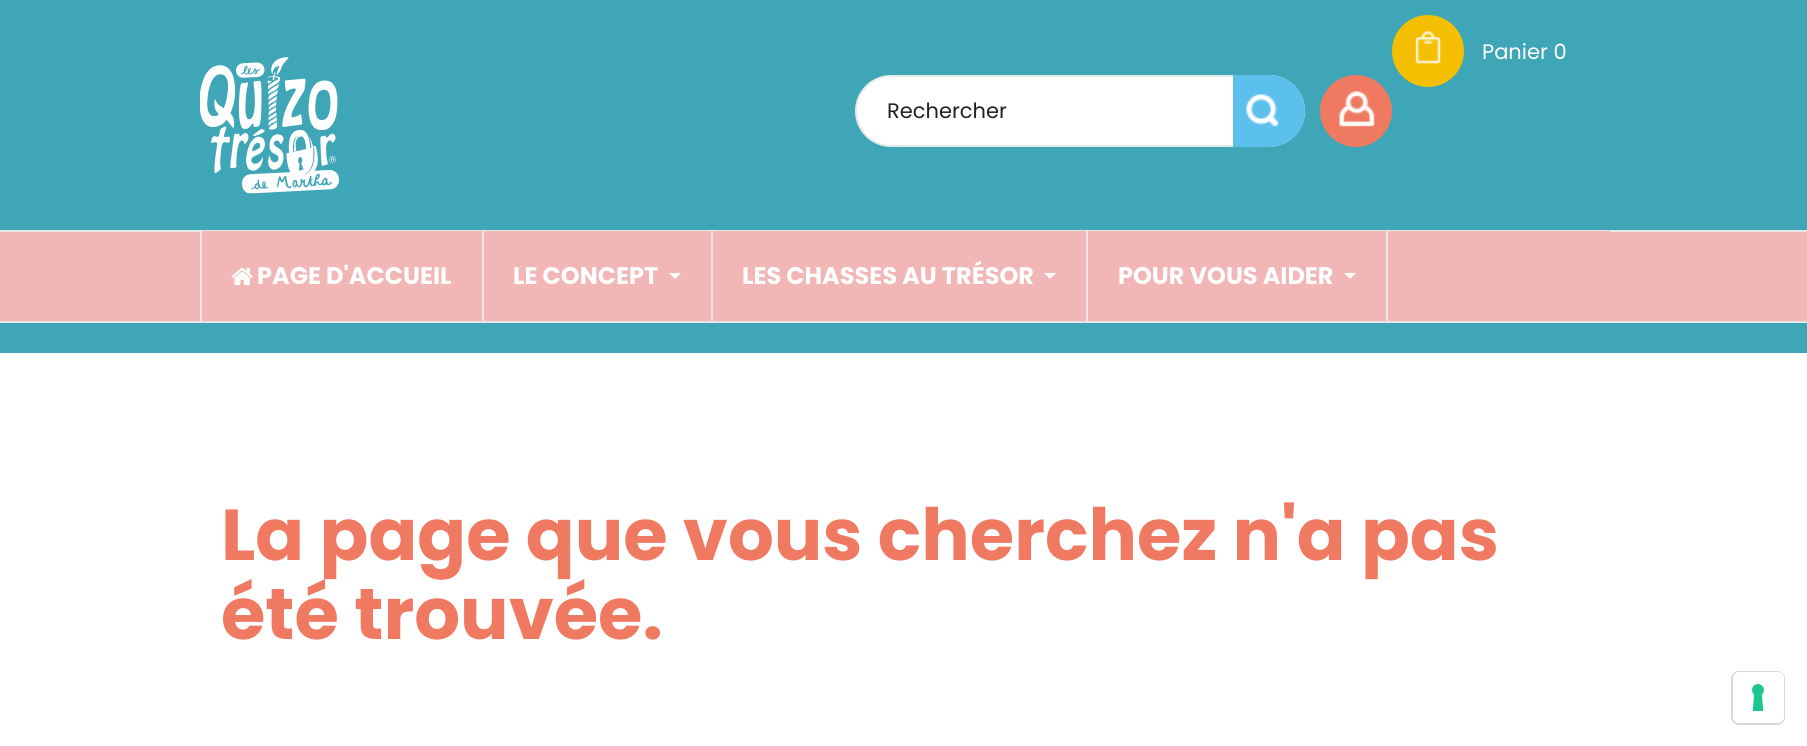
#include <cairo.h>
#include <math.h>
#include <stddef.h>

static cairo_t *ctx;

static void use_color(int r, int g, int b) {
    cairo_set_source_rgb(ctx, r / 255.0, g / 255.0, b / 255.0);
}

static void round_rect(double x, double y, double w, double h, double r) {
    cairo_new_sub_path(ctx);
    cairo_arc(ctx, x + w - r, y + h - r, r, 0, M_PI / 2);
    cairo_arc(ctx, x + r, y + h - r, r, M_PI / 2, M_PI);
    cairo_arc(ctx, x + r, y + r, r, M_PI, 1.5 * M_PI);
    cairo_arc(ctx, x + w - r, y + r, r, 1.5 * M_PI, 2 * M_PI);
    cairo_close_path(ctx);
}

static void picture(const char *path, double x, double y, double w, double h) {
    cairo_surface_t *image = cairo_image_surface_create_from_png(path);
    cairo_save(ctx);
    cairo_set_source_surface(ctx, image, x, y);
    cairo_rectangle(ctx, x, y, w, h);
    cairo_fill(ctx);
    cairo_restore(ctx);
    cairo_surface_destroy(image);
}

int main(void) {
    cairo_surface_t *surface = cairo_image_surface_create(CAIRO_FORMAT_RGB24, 1807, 746);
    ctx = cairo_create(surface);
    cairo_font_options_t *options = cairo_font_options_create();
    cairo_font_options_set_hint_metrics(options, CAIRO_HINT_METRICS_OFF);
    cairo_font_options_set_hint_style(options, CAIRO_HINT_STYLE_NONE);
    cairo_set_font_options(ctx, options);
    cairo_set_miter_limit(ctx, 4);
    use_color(255, 255, 255);
    cairo_paint(ctx);
    use_color(62, 166, 183);
    cairo_rectangle(ctx, 0, 0, 1807, 353);
    cairo_fill(ctx);
    picture("img1.png", 200, 57, 139, 137);
    use_color(244, 190, 1);
    cairo_arc(ctx, 1428, 51, 36, 0, 2 * M_PI);
    cairo_fill(ctx);
    picture("img2.png", 1415, 31, 26, 33);
    cairo_select_font_face(ctx, "Poppins", CAIRO_FONT_SLANT_NORMAL, CAIRO_FONT_WEIGHT_NORMAL);
    cairo_set_font_size(ctx, 21);
    use_color(255, 255, 255);
    cairo_move_to(ctx, 1482, 59);
    cairo_show_text(ctx, "Panier 0");
    round_rect(856, 76, 448, 70, 35);
    cairo_fill_preserve(ctx);
    use_color(233, 233, 233);
    cairo_stroke(ctx);
    use_color(33, 33, 33);
    cairo_move_to(ctx, 887, 118);
    cairo_show_text(ctx, "Rechercher");
    use_color(91, 192, 236);
    cairo_new_path(ctx);
    cairo_move_to(ctx, 1233, 75);
    cairo_line_to(ctx, 1269, 75);
    cairo_curve_to(ctx, 1289, 75, 1305, 91, 1305, 111);
    cairo_curve_to(ctx, 1305, 131, 1289, 147, 1269, 147);
    cairo_line_to(ctx, 1233, 147);
    cairo_close_path(ctx);
    cairo_fill(ctx);
    picture("img3.png", 1246, 94, 33, 33);
    use_color(239, 121, 97);
    cairo_arc(ctx, 1356, 111, 36, 0, 2 * M_PI);
    cairo_fill(ctx);
    picture("img4.png", 1339, 91, 36, 36);
    use_color(242, 182, 182);
    cairo_rectangle(ctx, 0, 232, 1807, 89);
    cairo_fill(ctx);
    use_color(231, 231, 231);
    cairo_rectangle(ctx, 0, 230, 1807, 2);
    cairo_fill(ctx);
    cairo_rectangle(ctx, 0, 321, 1807, 2);
    cairo_fill(ctx);
    use_color(242, 182, 182);
    cairo_rectangle(ctx, 202, 231, 1408, 1);
    cairo_fill(ctx);
    use_color(231, 231, 231);
    cairo_rectangle(ctx, 482, 231, 2, 90);
    cairo_fill(ctx);
    cairo_rectangle(ctx, 200, 231, 2, 90);
    cairo_fill(ctx);
    picture("img5.png", 231, 267, 22, 18);
    cairo_select_font_face(ctx, "Poppins", CAIRO_FONT_SLANT_NORMAL, CAIRO_FONT_WEIGHT_BOLD);
    cairo_set_font_size(ctx, 24);
    use_color(255, 255, 255);
    cairo_move_to(ctx, 257, 284);
    cairo_show_text(ctx, "PAGE D'ACCUEIL");
    use_color(231, 231, 231);
    cairo_rectangle(ctx, 711, 231, 2, 90);
    cairo_fill(ctx);
    use_color(255, 255, 255);
    cairo_move_to(ctx, 513, 284);
    cairo_show_text(ctx, "LE CONCEPT");
    cairo_new_path(ctx);
    cairo_move_to(ctx, 669, 273);
    cairo_line_to(ctx, 681, 273);
    cairo_line_to(ctx, 675, 279);
    cairo_close_path(ctx);
    cairo_fill(ctx);
    use_color(231, 231, 231);
    cairo_rectangle(ctx, 1086, 231, 2, 90);
    cairo_fill(ctx);
    use_color(255, 255, 255);
    cairo_move_to(ctx, 742, 284);
    cairo_show_text(ctx, "LES CHASSES AU TRÉSOR");
    cairo_new_path(ctx);
    cairo_move_to(ctx, 1044, 273);
    cairo_line_to(ctx, 1056, 273);
    cairo_line_to(ctx, 1050, 279);
    cairo_close_path(ctx);
    cairo_fill(ctx);
    use_color(231, 231, 231);
    cairo_rectangle(ctx, 1386, 231, 2, 90);
    cairo_fill(ctx);
    use_color(255, 255, 255);
    cairo_move_to(ctx, 1118, 284);
    cairo_show_text(ctx, "POUR VOUS AIDER");
    cairo_new_path(ctx);
    cairo_move_to(ctx, 1344, 273);
    cairo_line_to(ctx, 1356, 273);
    cairo_line_to(ctx, 1350, 279);
    cairo_close_path(ctx);
    cairo_fill(ctx);
    cairo_set_font_size(ctx, 72);
    use_color(239, 121, 97);
    cairo_move_to(ctx, 221, 560);
    cairo_show_text(ctx, "La page que vous cherchez n'a pas");
    cairo_move_to(ctx, 221, 639);
    cairo_show_text(ctx, "été trouvée.");
    round_rect(1732, 672, 52, 52, 7);
    use_color(217, 217, 217);
    cairo_stroke(ctx);
    use_color(255, 255, 255);
    round_rect(1733, 672, 51, 51, 6);
    cairo_fill(ctx);
    picture("img6.png", 1752, 684, 12, 27);
    cairo_surface_write_to_png(surface, "result.png");
    cairo_font_options_destroy(options);
    cairo_destroy(ctx);
    cairo_surface_destroy(surface);
    return 0;
}
